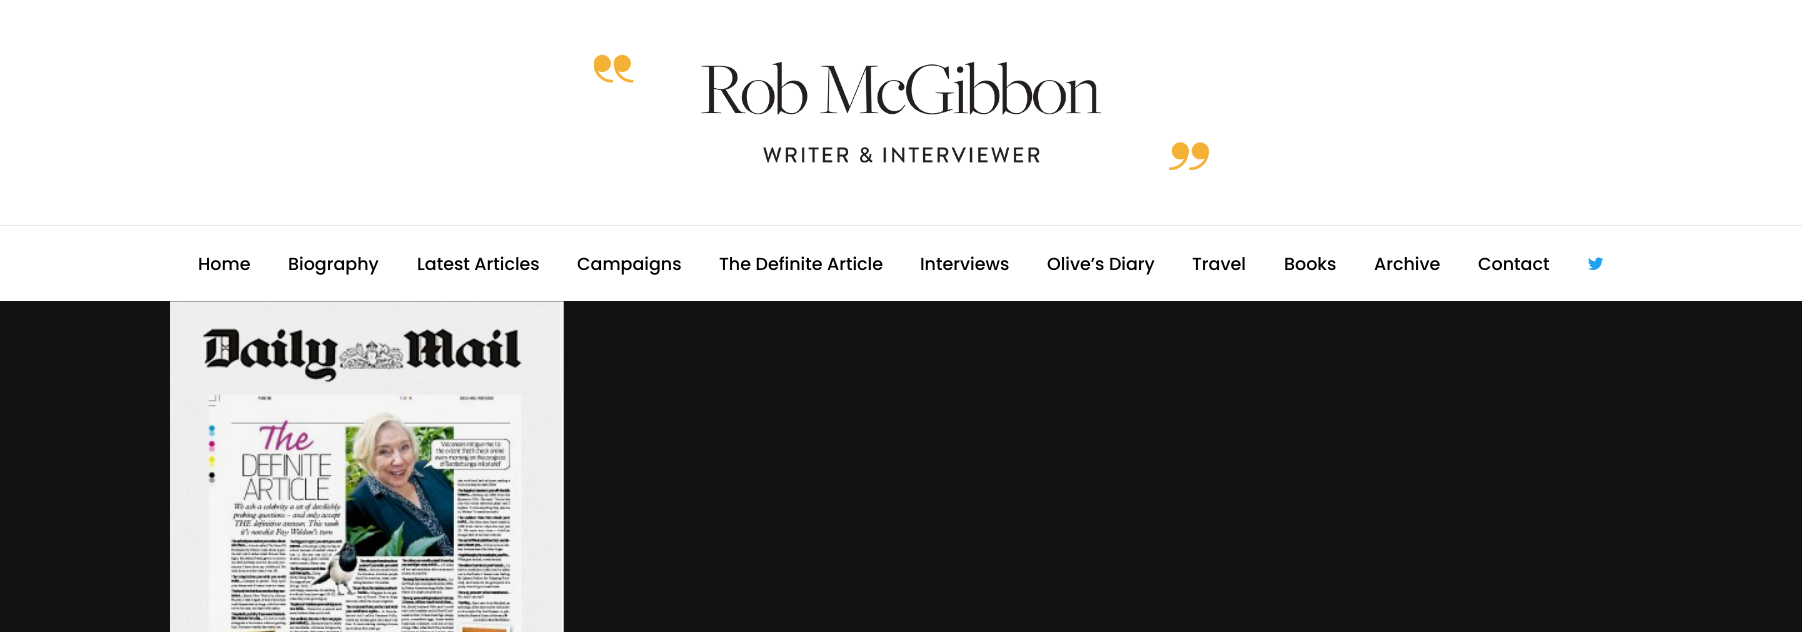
#include <cairo.h>
#include <math.h>
#include <stddef.h>

static cairo_t *ctx;

static void use_color(int r, int g, int b) {
    cairo_set_source_rgb(ctx, r / 255.0, g / 255.0, b / 255.0);
}

static void picture(const char *path, double x, double y, double w, double h) {
    cairo_surface_t *image = cairo_image_surface_create_from_png(path);
    cairo_save(ctx);
    cairo_set_source_surface(ctx, image, x, y);
    cairo_rectangle(ctx, x, y, w, h);
    cairo_fill(ctx);
    cairo_restore(ctx);
    cairo_surface_destroy(image);
}

int main(void) {
    cairo_surface_t *surface = cairo_image_surface_create(CAIRO_FORMAT_RGB24, 1802, 632);
    ctx = cairo_create(surface);
    cairo_font_options_t *options = cairo_font_options_create();
    cairo_font_options_set_hint_metrics(options, CAIRO_HINT_METRICS_OFF);
    cairo_font_options_set_hint_style(options, CAIRO_HINT_STYLE_NONE);
    cairo_set_font_options(ctx, options);
    cairo_set_miter_limit(ctx, 4);
    use_color(17, 18, 19);
    cairo_paint(ctx);
    picture("img3.png", 170, 301, 394, 331);
    cairo_set_source_rgba(ctx, 0, 0, 0, 0.1);
    cairo_rectangle(ctx, 170, 301, 394, 1);
    cairo_fill(ctx);
    use_color(255, 255, 255);
    cairo_rectangle(ctx, 0, 0, 1802, 225);
    cairo_fill(ctx);
    picture("img1.png", 593, 54, 616, 116);
    cairo_rectangle(ctx, 0, 226, 1802, 75);
    cairo_fill(ctx);
    use_color(230, 230, 230);
    cairo_rectangle(ctx, 0, 225, 1802, 1);
    cairo_fill(ctx);
    cairo_select_font_face(ctx, "Poppins Medium", CAIRO_FONT_SLANT_NORMAL, CAIRO_FONT_WEIGHT_NORMAL);
    cairo_set_font_size(ctx, 17.5);
    use_color(0, 0, 0);
    cairo_move_to(ctx, 198, 270);
    cairo_show_text(ctx, "Home");
    cairo_move_to(ctx, 288, 270);
    cairo_show_text(ctx, "Biography");
    cairo_move_to(ctx, 417, 270);
    cairo_show_text(ctx, "Latest Articles");
    cairo_move_to(ctx, 577, 270);
    cairo_show_text(ctx, "Campaigns");
    cairo_move_to(ctx, 719, 270);
    cairo_show_text(ctx, "The Definite Article");
    cairo_move_to(ctx, 920, 270);
    cairo_show_text(ctx, "Interviews");
    cairo_move_to(ctx, 1047, 270);
    cairo_show_text(ctx, "Olive’s Diary");
    cairo_move_to(ctx, 1192, 270);
    cairo_show_text(ctx, "Travel");
    cairo_move_to(ctx, 1284, 270);
    cairo_show_text(ctx, "Books");
    cairo_move_to(ctx, 1374, 270);
    cairo_show_text(ctx, "Archive");
    cairo_move_to(ctx, 1478, 270);
    cairo_show_text(ctx, "Contact");
    picture("img2.png", 1588, 257, 16, 13);
    cairo_surface_write_to_png(surface, "result.png");
    cairo_font_options_destroy(options);
    cairo_destroy(ctx);
    cairo_surface_destroy(surface);
    return 0;
}
